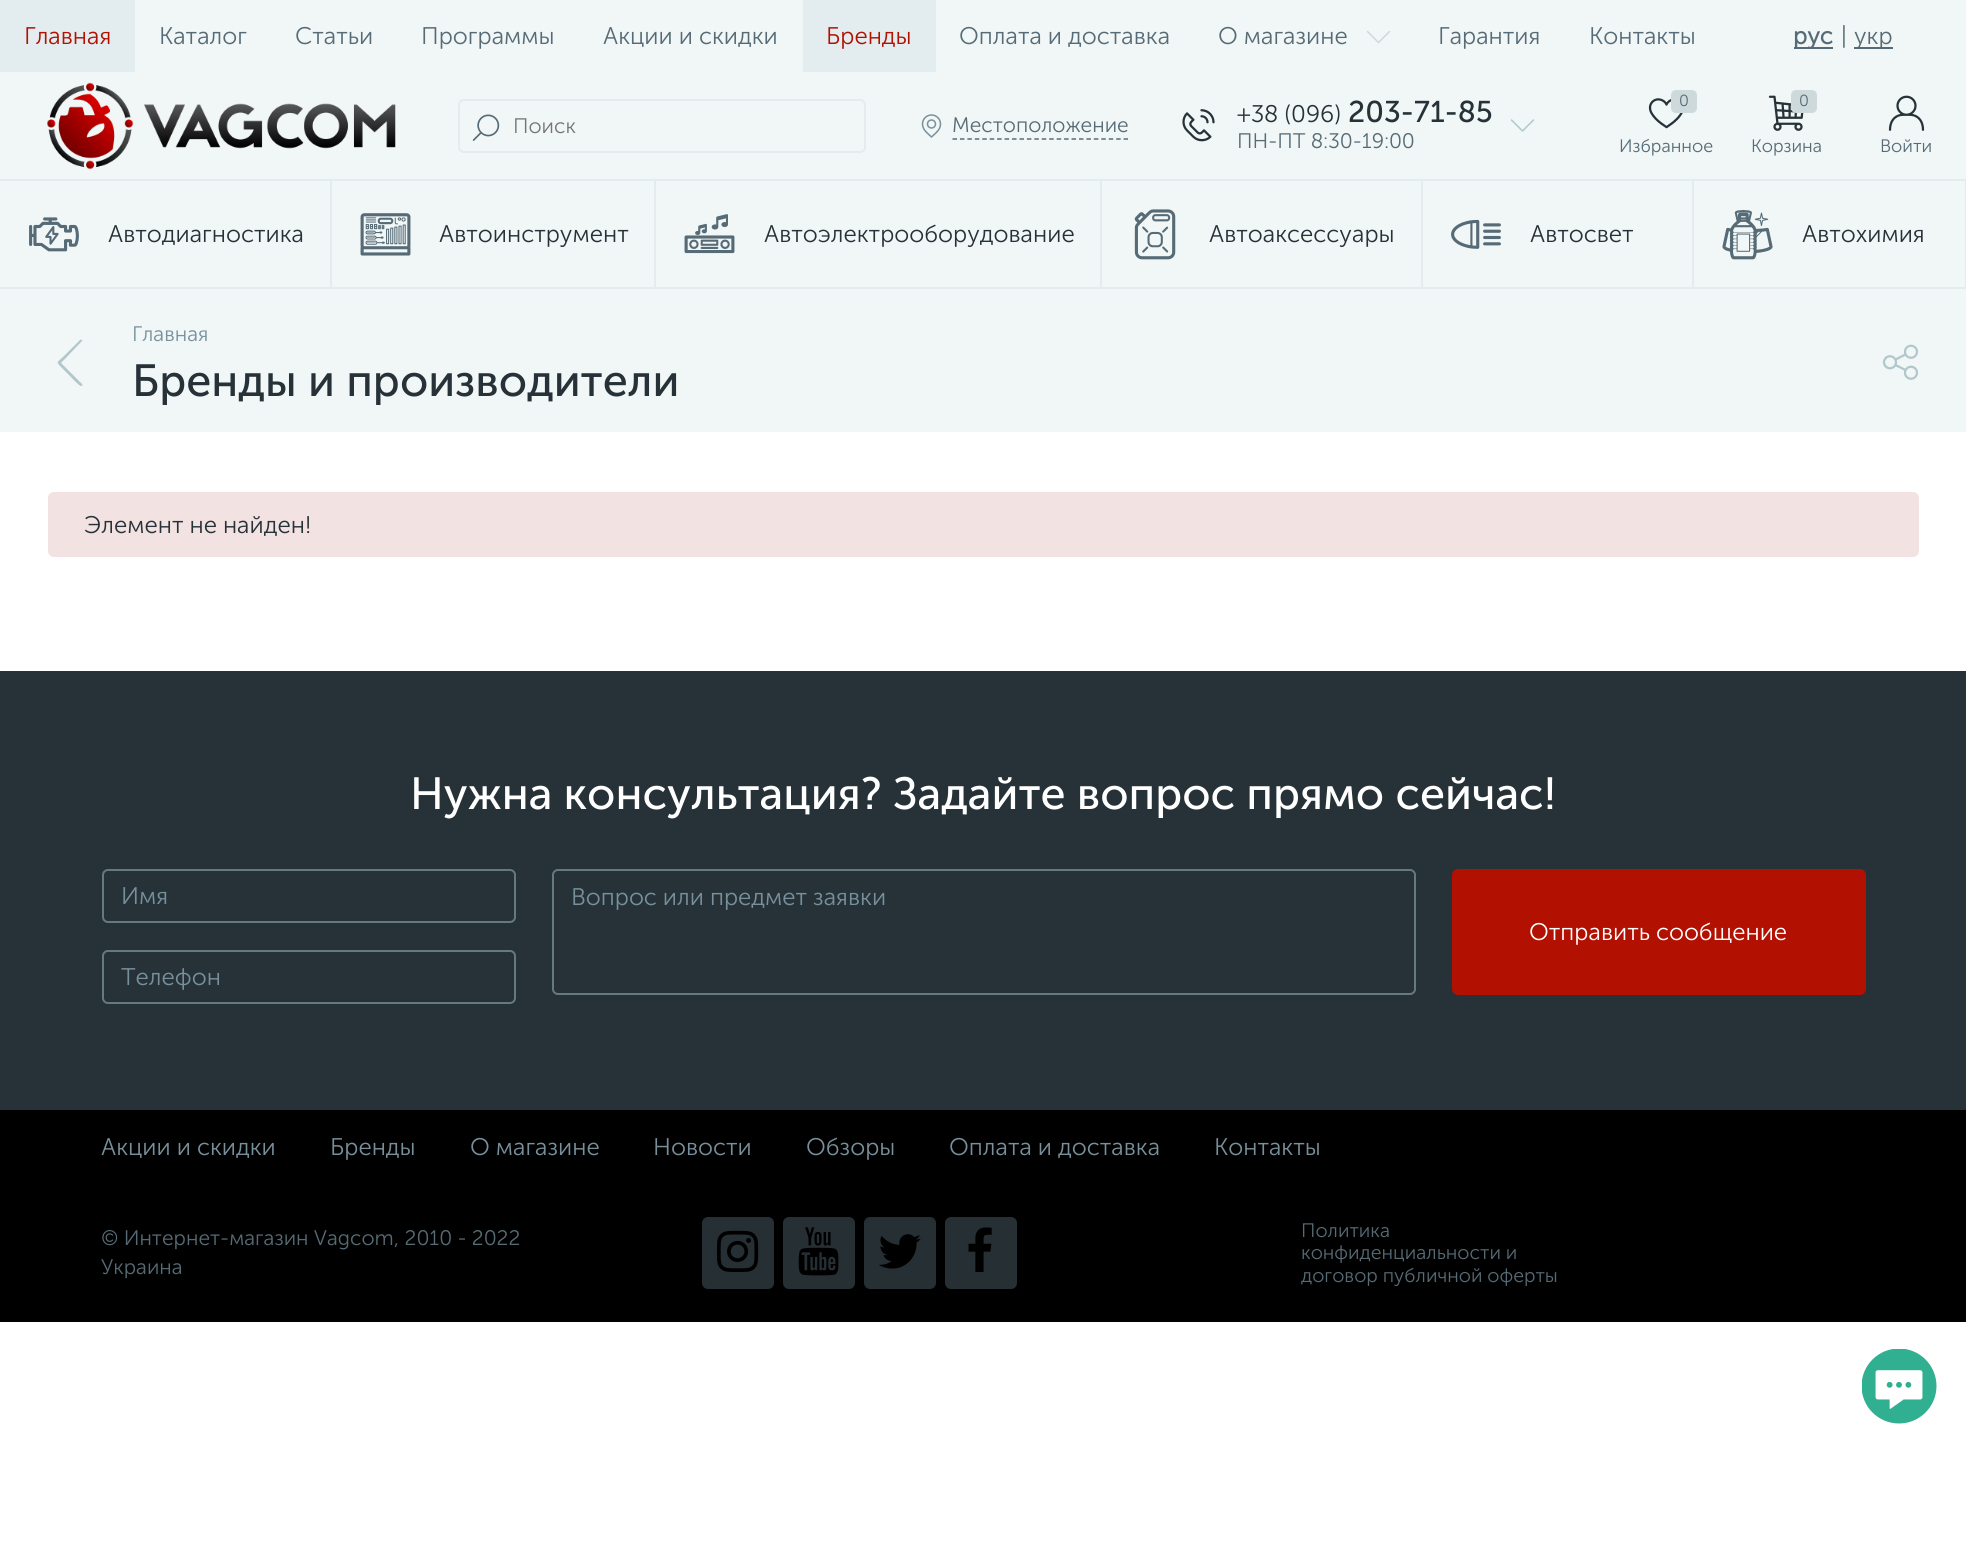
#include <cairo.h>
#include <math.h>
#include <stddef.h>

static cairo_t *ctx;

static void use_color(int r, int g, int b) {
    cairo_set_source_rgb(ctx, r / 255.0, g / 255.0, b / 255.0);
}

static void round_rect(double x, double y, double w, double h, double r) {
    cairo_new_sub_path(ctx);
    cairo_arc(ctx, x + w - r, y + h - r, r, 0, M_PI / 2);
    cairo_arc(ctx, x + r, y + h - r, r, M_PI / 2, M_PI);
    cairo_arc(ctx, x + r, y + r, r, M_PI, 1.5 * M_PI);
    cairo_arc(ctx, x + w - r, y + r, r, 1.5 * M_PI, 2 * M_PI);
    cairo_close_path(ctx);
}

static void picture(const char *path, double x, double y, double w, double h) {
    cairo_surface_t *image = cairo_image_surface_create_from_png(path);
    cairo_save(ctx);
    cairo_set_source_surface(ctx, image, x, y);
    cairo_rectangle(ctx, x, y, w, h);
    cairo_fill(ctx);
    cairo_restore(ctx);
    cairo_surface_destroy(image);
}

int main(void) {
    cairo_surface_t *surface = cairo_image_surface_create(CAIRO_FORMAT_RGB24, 1966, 1541);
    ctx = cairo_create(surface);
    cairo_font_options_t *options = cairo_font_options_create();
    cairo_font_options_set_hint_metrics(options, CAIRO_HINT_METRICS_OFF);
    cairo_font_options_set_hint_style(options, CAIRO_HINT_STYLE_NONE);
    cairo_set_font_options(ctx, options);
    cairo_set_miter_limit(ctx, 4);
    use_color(255, 255, 255);
    cairo_paint(ctx);
    use_color(241, 246, 247);
    cairo_rectangle(ctx, 135, 0, 1831, 72);
    cairo_fill(ctx);
    use_color(227, 236, 239);
    cairo_rectangle(ctx, 0, 0, 135, 72);
    cairo_fill(ctx);
    cairo_select_font_face(ctx, "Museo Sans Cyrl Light", CAIRO_FONT_SLANT_NORMAL, CAIRO_FONT_WEIGHT_NORMAL);
    cairo_set_font_size(ctx, 24);
    use_color(178, 16, 1);
    cairo_move_to(ctx, 24, 44);
    cairo_show_text(ctx, "Главная");
    use_color(86, 107, 117);
    cairo_move_to(ctx, 159, 44);
    cairo_show_text(ctx, "Каталог");
    cairo_move_to(ctx, 295, 44);
    cairo_show_text(ctx, "Статьи");
    cairo_move_to(ctx, 421, 44);
    cairo_show_text(ctx, "Программы");
    cairo_move_to(ctx, 603, 44);
    cairo_show_text(ctx, "Акции и скидки");
    use_color(227, 236, 239);
    cairo_rectangle(ctx, 803, 0, 133, 72);
    cairo_fill(ctx);
    use_color(178, 16, 1);
    cairo_move_to(ctx, 826, 44);
    cairo_show_text(ctx, "Бренды");
    use_color(86, 107, 117);
    cairo_move_to(ctx, 959, 44);
    cairo_show_text(ctx, "Оплата и доставка");
    cairo_move_to(ctx, 1218, 44);
    cairo_show_text(ctx, "О магазине");
    picture("img1.png", 1366, 30, 25, 14);
    cairo_move_to(ctx, 1438, 44);
    cairo_show_text(ctx, "Гарантия");
    cairo_move_to(ctx, 1589, 44);
    cairo_show_text(ctx, "Контакты");
    cairo_rectangle(ctx, 1794, 47, 39, 2);
    cairo_fill(ctx);
    cairo_select_font_face(ctx, "Museo Sans Cyrl", CAIRO_FONT_SLANT_NORMAL, CAIRO_FONT_WEIGHT_BOLD);
    cairo_move_to(ctx, 1793, 44);
    cairo_show_text(ctx, "рус");
    cairo_select_font_face(ctx, "Museo Sans Cyrl Light", CAIRO_FONT_SLANT_NORMAL, CAIRO_FONT_WEIGHT_NORMAL);
    cairo_move_to(ctx, 1841, 44);
    cairo_show_text(ctx, "|");
    cairo_rectangle(ctx, 1854, 47, 39, 2);
    cairo_fill(ctx);
    cairo_move_to(ctx, 1854, 44);
    cairo_show_text(ctx, "укр");
    use_color(241, 246, 247);
    cairo_rectangle(ctx, 0, 72, 1966, 107);
    cairo_fill(ctx);
    picture("img2.png", 47, 82, 349, 88);
    round_rect(459, 100, 406, 52, 5);
    use_color(227, 236, 239);
    cairo_stroke(ctx);
    picture("img3.png", 472, 114, 28, 27);
    cairo_set_font_size(ctx, 21);
    use_color(117, 117, 117);
    cairo_move_to(ctx, 513, 133);
    cairo_show_text(ctx, "Поиск");
    picture("img4.png", 921, 114, 21, 24);
    cairo_new_path(ctx);
    cairo_move_to(ctx, 952.5, 139);
    cairo_line_to(ctx, 1128, 139);
    use_color(86, 107, 117);
    cairo_set_line_width(ctx, 1.5);
    cairo_set_dash(ctx, (double[]){4.5, 2.94}, 2, 0);
    cairo_stroke(ctx);
    cairo_move_to(ctx, 952, 132);
    cairo_show_text(ctx, "Местоположение");
    picture("img5.png", 1182, 109, 33, 33);
    cairo_set_font_size(ctx, 24);
    use_color(38, 50, 56);
    cairo_move_to(ctx, 1237, 122);
    cairo_show_text(ctx, "+38 (096)");
    cairo_select_font_face(ctx, "Museo Sans Cyrl", CAIRO_FONT_SLANT_NORMAL, CAIRO_FONT_WEIGHT_NORMAL);
    cairo_set_font_size(ctx, 30);
    cairo_move_to(ctx, 1348, 122);
    cairo_show_text(ctx, "203-71-85");
    cairo_select_font_face(ctx, "Museo Sans Cyrl Light", CAIRO_FONT_SLANT_NORMAL, CAIRO_FONT_WEIGHT_NORMAL);
    cairo_set_font_size(ctx, 21);
    use_color(86, 107, 117);
    cairo_move_to(ctx, 1237, 148);
    cairo_show_text(ctx, "ПН-ПТ 8:30-19:00");
    picture("img6.png", 1510, 119, 25, 13);
    picture("img7.png", 1648, 98, 35, 31);
    use_color(206, 217, 219);
    round_rect(1671, 90, 26, 23, 5);
    cairo_fill(ctx);
    cairo_set_font_size(ctx, 16);
    use_color(86, 107, 117);
    cairo_move_to(ctx, 1679, 106);
    cairo_show_text(ctx, "0");
    cairo_set_font_size(ctx, 18);
    cairo_move_to(ctx, 1619, 152);
    cairo_show_text(ctx, "Избранное");
    picture("img8.png", 1768, 95, 36, 36);
    use_color(206, 217, 219);
    round_rect(1791, 90, 26, 23, 5);
    cairo_fill(ctx);
    cairo_set_font_size(ctx, 16);
    use_color(86, 107, 117);
    cairo_move_to(ctx, 1799, 106);
    cairo_show_text(ctx, "0");
    cairo_set_font_size(ctx, 18);
    cairo_move_to(ctx, 1751, 152);
    cairo_show_text(ctx, "Корзина");
    picture("img9.png", 1888, 95, 37, 36);
    cairo_move_to(ctx, 1880, 152);
    cairo_show_text(ctx, "Войти");
    use_color(241, 246, 247);
    cairo_rectangle(ctx, 0, 181, 1965, 106);
    cairo_fill(ctx);
    use_color(227, 236, 239);
    cairo_rectangle(ctx, 0, 287, 1966, 2);
    cairo_fill(ctx);
    cairo_rectangle(ctx, 330, 180, 2, 108);
    cairo_fill(ctx);
    cairo_rectangle(ctx, 654, 180, 2, 108);
    cairo_fill(ctx);
    cairo_rectangle(ctx, 1100, 180, 2, 108);
    cairo_fill(ctx);
    cairo_rectangle(ctx, 1421, 180, 2, 108);
    cairo_fill(ctx);
    cairo_rectangle(ctx, 1692, 180, 2, 108);
    cairo_fill(ctx);
    cairo_rectangle(ctx, 1965, 180, 1, 108);
    cairo_fill(ctx);
    cairo_rectangle(ctx, 0, 179, 1966, 2);
    cairo_fill(ctx);
    picture("img10.png", 29, 217, 50, 35);
    cairo_set_font_size(ctx, 24);
    use_color(38, 50, 56);
    cairo_move_to(ctx, 108, 242);
    cairo_show_text(ctx, "Автодиагностика");
    picture("img11.png", 360, 213, 51, 43);
    cairo_move_to(ctx, 439, 242);
    cairo_show_text(ctx, "Автоинструмент");
    picture("img12.png", 684, 214, 51, 40);
    cairo_move_to(ctx, 764, 242);
    cairo_show_text(ctx, "Автоэлектрооборудование");
    picture("img13.png", 1134, 209, 42, 51);
    cairo_move_to(ctx, 1209, 242);
    cairo_show_text(ctx, "Автоаксессуары");
    picture("img14.png", 1451, 219, 50, 30);
    cairo_move_to(ctx, 1530, 242);
    cairo_show_text(ctx, "Автосвет");
    picture("img15.png", 1722, 210, 51, 50);
    cairo_move_to(ctx, 1802, 242);
    cairo_show_text(ctx, "Автохимия");
    use_color(241, 246, 247);
    cairo_rectangle(ctx, 0, 289, 1966, 143);
    cairo_fill(ctx);
    use_color(178, 199, 203);
    cairo_new_path(ctx);
    cairo_move_to(ctx, 81, 386);
    cairo_curve_to(ctx, 79, 386, 71, 377, 69, 375);
    cairo_line_to(ctx, 62, 368);
    cairo_curve_to(ctx, 55, 361, 57, 363, 65, 355);
    cairo_line_to(ctx, 80, 340);
    cairo_curve_to(ctx, 81, 339, 83, 340, 82, 341);
    cairo_line_to(ctx, 61, 363);
    cairo_line_to(ctx, 82, 384);
    cairo_curve_to(ctx, 83, 385, 82, 386, 81, 386);
    cairo_close_path(ctx);
    cairo_fill(ctx);
    cairo_set_font_size(ctx, 21);
    use_color(120, 144, 156);
    cairo_move_to(ctx, 132, 341);
    cairo_show_text(ctx, "Главная");
    cairo_select_font_face(ctx, "Museo Sans Cyrl", CAIRO_FONT_SLANT_NORMAL, CAIRO_FONT_WEIGHT_NORMAL);
    cairo_set_font_size(ctx, 45);
    use_color(38, 50, 56);
    cairo_move_to(ctx, 132, 396);
    cairo_show_text(ctx, "Бренды и производители");
    picture("img16.png", 1882, 344, 37, 36);
    use_color(242, 226, 225);
    round_rect(48, 492, 1871, 65, 6);
    cairo_fill(ctx);
    cairo_select_font_face(ctx, "Museo Sans Cyrl Light", CAIRO_FONT_SLANT_NORMAL, CAIRO_FONT_WEIGHT_NORMAL);
    cairo_set_font_size(ctx, 24);
    use_color(38, 50, 56);
    cairo_move_to(ctx, 84, 533);
    cairo_show_text(ctx, "Элемент не найден!");
    cairo_rectangle(ctx, 0, 671, 1966, 439);
    cairo_fill(ctx);
    cairo_select_font_face(ctx, "Museo Sans Cyrl", CAIRO_FONT_SLANT_NORMAL, CAIRO_FONT_WEIGHT_NORMAL);
    cairo_set_font_size(ctx, 45);
    use_color(255, 255, 255);
    cairo_move_to(ctx, 410, 809);
    cairo_show_text(ctx, "Нужна консультация? Задайте вопрос прямо сейчас!");
    round_rect(103, 870, 412, 52, 5);
    use_color(102, 121, 127);
    cairo_set_line_width(ctx, 2);
    cairo_set_dash(ctx, NULL, 0, 0);
    cairo_stroke(ctx);
    cairo_select_font_face(ctx, "Museo Sans Cyrl Light", CAIRO_FONT_SLANT_NORMAL, CAIRO_FONT_WEIGHT_NORMAL);
    cairo_set_font_size(ctx, 24);
    use_color(120, 144, 156);
    cairo_move_to(ctx, 121, 904);
    cairo_show_text(ctx, "Имя");
    round_rect(103, 951, 412, 52, 5);
    use_color(102, 121, 127);
    cairo_stroke(ctx);
    use_color(120, 144, 156);
    cairo_move_to(ctx, 121, 985);
    cairo_show_text(ctx, "Телефон");
    round_rect(553, 870, 862, 124, 5);
    use_color(102, 121, 127);
    cairo_stroke(ctx);
    use_color(120, 144, 156);
    cairo_move_to(ctx, 571, 905);
    cairo_show_text(ctx, "Вопрос или предмет заявки");
    use_color(178, 16, 1);
    round_rect(1452, 869, 414, 126, 6);
    cairo_fill(ctx);
    use_color(255, 255, 255);
    cairo_move_to(ctx, 1529, 940);
    cairo_show_text(ctx, "Отправить сообщение");
    use_color(0, 0, 0);
    cairo_rectangle(ctx, 0, 1110, 1966, 212);
    cairo_fill(ctx);
    use_color(120, 144, 156);
    cairo_move_to(ctx, 101, 1155);
    cairo_show_text(ctx, "Акции и скидки");
    cairo_move_to(ctx, 330, 1155);
    cairo_show_text(ctx, "Бренды");
    cairo_move_to(ctx, 470, 1155);
    cairo_show_text(ctx, "О магазине");
    cairo_move_to(ctx, 653, 1155);
    cairo_show_text(ctx, "Новости");
    cairo_move_to(ctx, 806, 1155);
    cairo_show_text(ctx, "Обзоры");
    cairo_move_to(ctx, 949, 1155);
    cairo_show_text(ctx, "Оплата и доставка");
    cairo_move_to(ctx, 1214, 1155);
    cairo_show_text(ctx, "Контакты");
    cairo_set_font_size(ctx, 21);
    use_color(86, 107, 117);
    cairo_move_to(ctx, 101, 1245);
    cairo_show_text(ctx, "© Интернет-магазин Vagcom, 2010 - 2022");
    cairo_move_to(ctx, 101, 1274);
    cairo_show_text(ctx, "Украина");
    use_color(38, 47, 52);
    round_rect(702, 1217, 72, 72, 6);
    cairo_fill(ctx);
    picture("img17.png", 717, 1230, 42, 42);
    round_rect(783, 1217, 72, 72, 6);
    cairo_fill(ctx);
    picture("img18.png", 798, 1227, 41, 49);
    round_rect(864, 1217, 72, 72, 6);
    cairo_fill(ctx);
    picture("img19.png", 879, 1234, 42, 35);
    round_rect(945, 1217, 72, 72, 6);
    cairo_fill(ctx);
    picture("img20.png", 968, 1227, 24, 45);
    cairo_set_font_size(ctx, 19.5);
    use_color(86, 107, 117);
    cairo_move_to(ctx, 1301, 1237);
    cairo_show_text(ctx, "Политика");
    cairo_move_to(ctx, 1301, 1259);
    cairo_show_text(ctx, "конфиденциальности и");
    cairo_move_to(ctx, 1301, 1282);
    cairo_show_text(ctx, "договор публичной оферты");
    picture("img21.png", 1862, 1349, 75, 75);
    cairo_surface_write_to_png(surface, "result.png");
    cairo_font_options_destroy(options);
    cairo_destroy(ctx);
    cairo_surface_destroy(surface);
    return 0;
}
